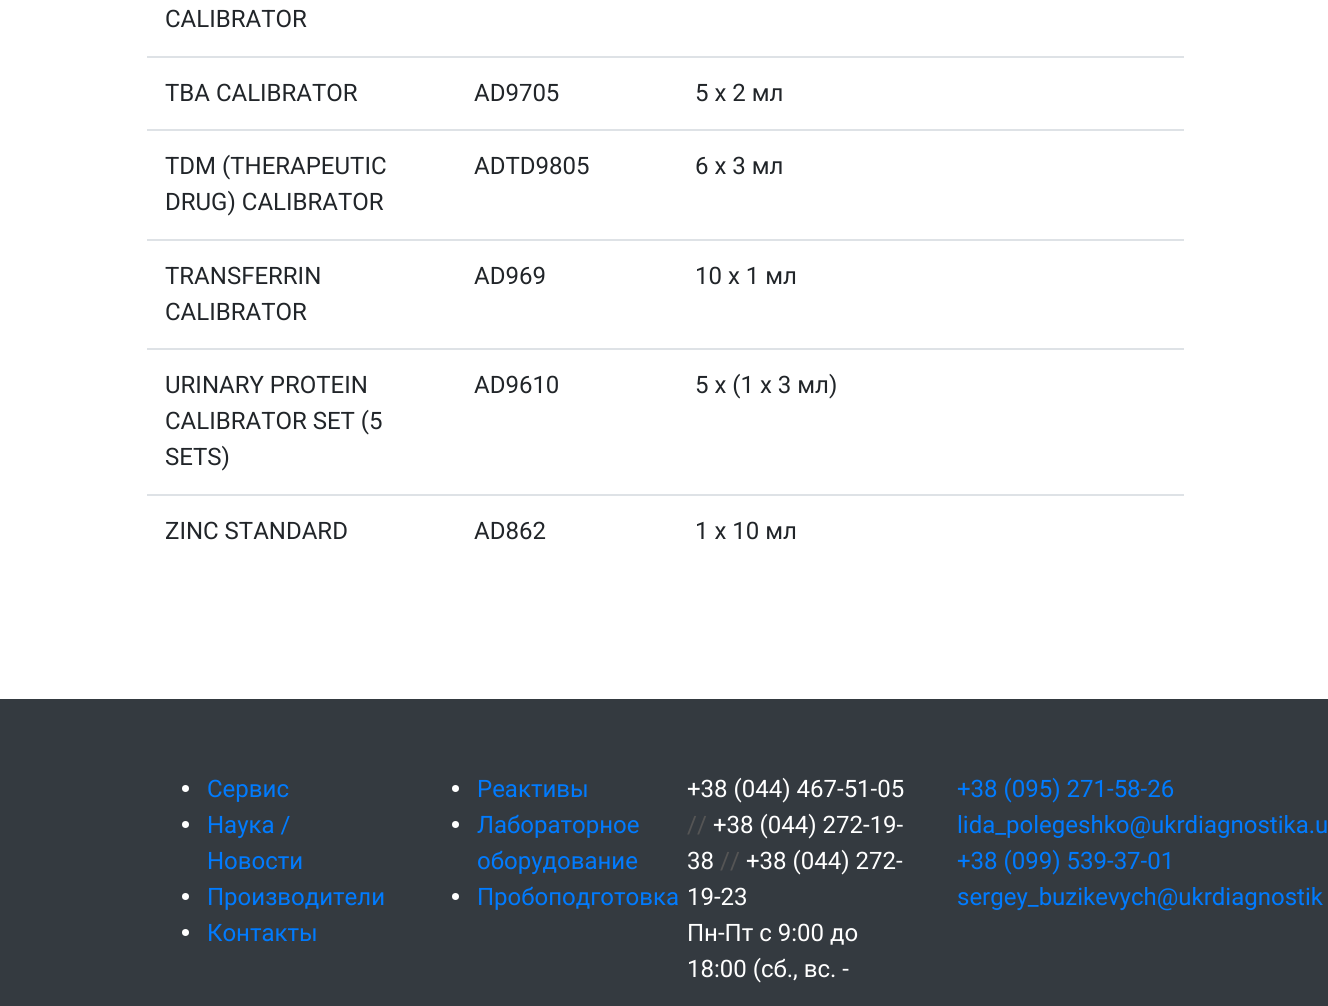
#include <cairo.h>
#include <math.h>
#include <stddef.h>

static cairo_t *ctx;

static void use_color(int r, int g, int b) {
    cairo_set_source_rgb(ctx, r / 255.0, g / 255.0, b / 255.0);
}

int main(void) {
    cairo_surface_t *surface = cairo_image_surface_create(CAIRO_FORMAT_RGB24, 1328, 1006);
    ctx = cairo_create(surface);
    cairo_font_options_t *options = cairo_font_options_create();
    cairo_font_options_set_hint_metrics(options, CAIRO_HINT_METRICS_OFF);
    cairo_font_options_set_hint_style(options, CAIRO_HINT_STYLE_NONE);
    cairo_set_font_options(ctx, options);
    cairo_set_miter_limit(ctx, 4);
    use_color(255, 255, 255);
    cairo_paint(ctx);
    cairo_select_font_face(ctx, "Roboto", CAIRO_FONT_SLANT_NORMAL, CAIRO_FONT_WEIGHT_NORMAL);
    cairo_set_font_size(ctx, 24);
    use_color(33, 37, 41);
    cairo_move_to(ctx, 165, 27);
    cairo_show_text(ctx, "CALIBRATOR");
    use_color(222, 226, 230);
    cairo_rectangle(ctx, 147, 56, 1037, 2);
    cairo_fill(ctx);
    use_color(33, 37, 41);
    cairo_move_to(ctx, 165, 101);
    cairo_show_text(ctx, "TBA CALIBRATOR");
    cairo_move_to(ctx, 474, 101);
    cairo_show_text(ctx, "AD9705");
    cairo_move_to(ctx, 695, 101);
    cairo_show_text(ctx, "5 x 2 мл");
    use_color(222, 226, 230);
    cairo_rectangle(ctx, 147, 129, 1037, 2);
    cairo_fill(ctx);
    use_color(33, 37, 41);
    cairo_move_to(ctx, 165, 174);
    cairo_show_text(ctx, "TDM (THERAPEUTIC");
    cairo_move_to(ctx, 165, 210);
    cairo_show_text(ctx, "DRUG) CALIBRATOR");
    cairo_move_to(ctx, 474, 174);
    cairo_show_text(ctx, "ADTD9805");
    cairo_move_to(ctx, 695, 174);
    cairo_show_text(ctx, "6 x 3 мл");
    use_color(222, 226, 230);
    cairo_rectangle(ctx, 147, 239, 1037, 2);
    cairo_fill(ctx);
    use_color(33, 37, 41);
    cairo_move_to(ctx, 165, 284);
    cairo_show_text(ctx, "TRANSFERRIN");
    cairo_move_to(ctx, 165, 320);
    cairo_show_text(ctx, "CALIBRATOR");
    cairo_move_to(ctx, 474, 284);
    cairo_show_text(ctx, "AD969");
    cairo_move_to(ctx, 695, 284);
    cairo_show_text(ctx, "10 x 1 мл");
    use_color(222, 226, 230);
    cairo_rectangle(ctx, 147, 348, 1037, 2);
    cairo_fill(ctx);
    use_color(33, 37, 41);
    cairo_move_to(ctx, 165, 393);
    cairo_show_text(ctx, "URINARY PROTEIN");
    cairo_move_to(ctx, 165, 429);
    cairo_show_text(ctx, "CALIBRATOR SET (5");
    cairo_move_to(ctx, 165, 465);
    cairo_show_text(ctx, "SETS)");
    cairo_move_to(ctx, 474, 393);
    cairo_show_text(ctx, "AD9610");
    cairo_move_to(ctx, 695, 393);
    cairo_show_text(ctx, "5 x (1 x 3 мл)");
    use_color(222, 226, 230);
    cairo_rectangle(ctx, 147, 494, 1037, 2);
    cairo_fill(ctx);
    use_color(33, 37, 41);
    cairo_move_to(ctx, 165, 539);
    cairo_show_text(ctx, "ZINC STANDARD");
    cairo_move_to(ctx, 474, 539);
    cairo_show_text(ctx, "AD862");
    cairo_move_to(ctx, 695, 539);
    cairo_show_text(ctx, "1 x 10 мл");
    use_color(52, 58, 64);
    cairo_rectangle(ctx, 0, 699, 1328, 307);
    cairo_fill(ctx);
    use_color(255, 255, 255);
    cairo_arc(ctx, 185.5, 788.5, 3.5, 0, 2 * M_PI);
    cairo_fill(ctx);
    use_color(0, 123, 255);
    cairo_move_to(ctx, 207, 797);
    cairo_show_text(ctx, "Сервис");
    use_color(255, 255, 255);
    cairo_new_path(ctx);
    cairo_arc(ctx, 185.5, 824.5, 3.5, 0, 2 * M_PI);
    cairo_fill(ctx);
    use_color(0, 123, 255);
    cairo_move_to(ctx, 207, 833);
    cairo_show_text(ctx, "Наука /");
    cairo_move_to(ctx, 207, 869);
    cairo_show_text(ctx, "Новости");
    use_color(255, 255, 255);
    cairo_new_path(ctx);
    cairo_arc(ctx, 185.5, 896.5, 3.5, 0, 2 * M_PI);
    cairo_fill(ctx);
    use_color(0, 123, 255);
    cairo_move_to(ctx, 207, 905);
    cairo_show_text(ctx, "Производители");
    use_color(255, 255, 255);
    cairo_new_path(ctx);
    cairo_arc(ctx, 185.5, 932.5, 3.5, 0, 2 * M_PI);
    cairo_fill(ctx);
    use_color(0, 123, 255);
    cairo_move_to(ctx, 207, 941);
    cairo_show_text(ctx, "Контакты");
    use_color(255, 255, 255);
    cairo_new_path(ctx);
    cairo_arc(ctx, 455.5, 788.5, 3.5, 0, 2 * M_PI);
    cairo_fill(ctx);
    use_color(0, 123, 255);
    cairo_move_to(ctx, 477, 797);
    cairo_show_text(ctx, "Реактивы");
    use_color(255, 255, 255);
    cairo_new_path(ctx);
    cairo_arc(ctx, 455.5, 824.5, 3.5, 0, 2 * M_PI);
    cairo_fill(ctx);
    use_color(0, 123, 255);
    cairo_move_to(ctx, 477, 833);
    cairo_show_text(ctx, "Лабораторное");
    cairo_move_to(ctx, 477, 869);
    cairo_show_text(ctx, "оборудование");
    use_color(255, 255, 255);
    cairo_new_path(ctx);
    cairo_arc(ctx, 455.5, 896.5, 3.5, 0, 2 * M_PI);
    cairo_fill(ctx);
    use_color(0, 123, 255);
    cairo_move_to(ctx, 477, 905);
    cairo_show_text(ctx, "Пробоподготовка");
    use_color(255, 255, 255);
    cairo_move_to(ctx, 687, 797);
    cairo_show_text(ctx, "+38 (044) 467-51-05");
    use_color(85, 85, 85);
    cairo_move_to(ctx, 687, 833);
    cairo_show_text(ctx, "//");
    use_color(255, 255, 255);
    cairo_move_to(ctx, 713, 833);
    cairo_show_text(ctx, "+38 (044) 272-19-");
    cairo_move_to(ctx, 687, 869);
    cairo_show_text(ctx, "38");
    use_color(85, 85, 85);
    cairo_move_to(ctx, 720, 869);
    cairo_show_text(ctx, "//");
    use_color(255, 255, 255);
    cairo_move_to(ctx, 746, 869);
    cairo_show_text(ctx, "+38 (044) 272-");
    cairo_move_to(ctx, 687, 905);
    cairo_show_text(ctx, "19-23");
    cairo_move_to(ctx, 687, 941);
    cairo_show_text(ctx, "Пн-Пт с 9:00 до");
    cairo_move_to(ctx, 687, 977);
    cairo_show_text(ctx, "18:00 (сб., вс. -");
    use_color(0, 123, 255);
    cairo_move_to(ctx, 957, 797);
    cairo_show_text(ctx, "+38 (095) 271-58-26");
    cairo_move_to(ctx, 957, 833);
    cairo_show_text(ctx, "lida_polegeshko@ukrdiagnostika.u");
    cairo_move_to(ctx, 957, 869);
    cairo_show_text(ctx, "+38 (099) 539-37-01");
    cairo_move_to(ctx, 957, 905);
    cairo_show_text(ctx, "sergey_buzikevych@ukrdiagnostik");
    cairo_surface_write_to_png(surface, "result.png");
    cairo_font_options_destroy(options);
    cairo_destroy(ctx);
    cairo_surface_destroy(surface);
    return 0;
}
